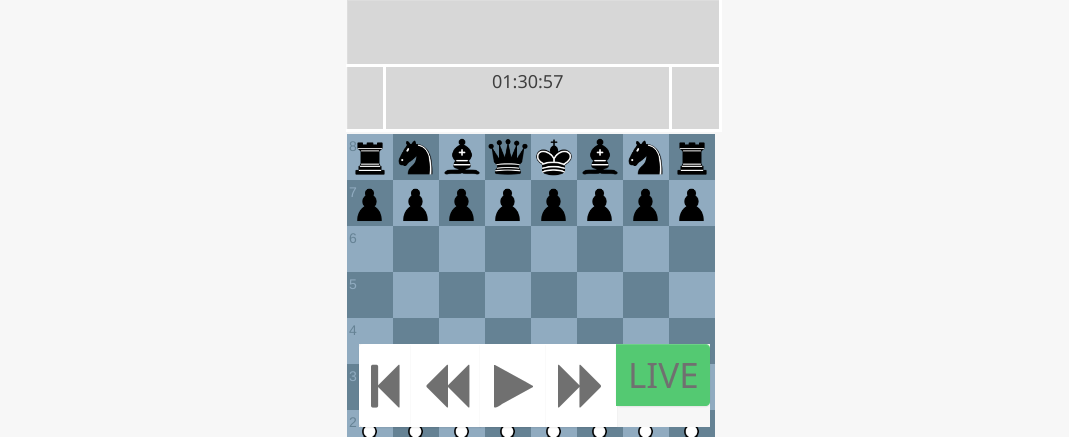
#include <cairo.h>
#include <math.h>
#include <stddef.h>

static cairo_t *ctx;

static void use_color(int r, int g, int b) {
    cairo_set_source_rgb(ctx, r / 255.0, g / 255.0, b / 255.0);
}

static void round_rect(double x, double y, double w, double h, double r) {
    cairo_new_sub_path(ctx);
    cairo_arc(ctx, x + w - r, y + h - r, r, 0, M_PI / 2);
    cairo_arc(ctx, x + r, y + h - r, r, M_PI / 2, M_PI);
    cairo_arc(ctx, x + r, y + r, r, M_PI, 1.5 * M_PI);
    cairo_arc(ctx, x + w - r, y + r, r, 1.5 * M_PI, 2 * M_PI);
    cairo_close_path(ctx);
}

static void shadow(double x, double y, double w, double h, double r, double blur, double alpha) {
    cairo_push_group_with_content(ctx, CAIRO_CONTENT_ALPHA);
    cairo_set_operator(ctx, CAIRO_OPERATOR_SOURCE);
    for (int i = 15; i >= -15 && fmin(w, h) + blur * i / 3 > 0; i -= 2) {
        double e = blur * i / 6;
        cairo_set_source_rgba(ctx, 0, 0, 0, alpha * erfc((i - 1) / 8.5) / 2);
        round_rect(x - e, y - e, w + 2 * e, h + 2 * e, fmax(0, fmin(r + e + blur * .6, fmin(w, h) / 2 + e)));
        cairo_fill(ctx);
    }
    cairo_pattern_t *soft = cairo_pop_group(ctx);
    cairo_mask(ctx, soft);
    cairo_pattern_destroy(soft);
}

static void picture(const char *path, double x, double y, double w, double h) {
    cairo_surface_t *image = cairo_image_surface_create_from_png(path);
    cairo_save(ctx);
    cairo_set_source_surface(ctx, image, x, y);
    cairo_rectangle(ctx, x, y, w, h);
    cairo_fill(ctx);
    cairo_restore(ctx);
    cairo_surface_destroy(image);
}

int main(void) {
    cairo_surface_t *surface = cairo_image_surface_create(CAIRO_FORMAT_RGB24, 1069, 437);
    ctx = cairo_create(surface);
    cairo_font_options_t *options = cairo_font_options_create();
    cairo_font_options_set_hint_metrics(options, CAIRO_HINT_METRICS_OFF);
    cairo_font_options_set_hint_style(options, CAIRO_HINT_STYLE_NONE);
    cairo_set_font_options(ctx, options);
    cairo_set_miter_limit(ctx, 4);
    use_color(247, 247, 247);
    cairo_paint(ctx);
    use_color(215, 215, 215);
    cairo_rectangle(ctx, 348, 1, 371, 128);
    cairo_fill(ctx);
    use_color(221, 221, 221);
    cairo_rectangle(ctx, 347, 0, 375, 1);
    cairo_fill(ctx);
    cairo_rectangle(ctx, 347, 0, 1, 132);
    cairo_fill(ctx);
    use_color(255, 255, 255);
    cairo_rectangle(ctx, 719, 0, 3, 132);
    cairo_fill(ctx);
    cairo_rectangle(ctx, 669, 129, 53, 3);
    cairo_fill(ctx);
    cairo_rectangle(ctx, 669, 64, 3, 68);
    cairo_fill(ctx);
    cairo_rectangle(ctx, 383, 129, 289, 3);
    cairo_fill(ctx);
    cairo_rectangle(ctx, 383, 64, 3, 68);
    cairo_fill(ctx);
    cairo_rectangle(ctx, 346, 64, 376, 3);
    cairo_fill(ctx);
    cairo_rectangle(ctx, 346, 129, 40, 3);
    cairo_fill(ctx);
    cairo_select_font_face(ctx, "Noto Sans", CAIRO_FONT_SLANT_NORMAL, CAIRO_FONT_WEIGHT_NORMAL);
    cairo_set_font_size(ctx, 18);
    use_color(64, 64, 64);
    cairo_move_to(ctx, 492, 88);
    cairo_show_text(ctx, "01:30:57");
    use_color(144, 171, 192);
    cairo_rectangle(ctx, 347, 134, 46, 46);
    cairo_fill(ctx);
    picture("img1.png", 355, 142, 30, 33);
    cairo_select_font_face(ctx, "Liberation Sans", CAIRO_FONT_SLANT_NORMAL, CAIRO_FONT_WEIGHT_NORMAL);
    cairo_set_font_size(ctx, 14);
    use_color(101, 130, 148);
    cairo_move_to(ctx, 349, 151);
    cairo_show_text(ctx, "8");
    cairo_rectangle(ctx, 393, 134, 46, 46);
    cairo_fill(ctx);
    picture("img2.png", 398, 140, 35, 35);
    use_color(144, 171, 192);
    cairo_rectangle(ctx, 439, 134, 46, 46);
    cairo_fill(ctx);
    picture("img3.png", 444, 138, 36, 37);
    use_color(101, 130, 148);
    cairo_rectangle(ctx, 485, 134, 46, 46);
    cairo_fill(ctx);
    picture("img4.png", 488, 139, 40, 36);
    use_color(144, 171, 192);
    cairo_rectangle(ctx, 531, 134, 46, 46);
    cairo_fill(ctx);
    picture("img5.png", 536, 139, 36, 37);
    use_color(101, 130, 148);
    cairo_rectangle(ctx, 577, 134, 46, 46);
    cairo_fill(ctx);
    picture("img6.png", 582, 138, 36, 37);
    use_color(144, 171, 192);
    cairo_rectangle(ctx, 623, 134, 46, 46);
    cairo_fill(ctx);
    picture("img7.png", 628, 140, 35, 35);
    use_color(101, 130, 148);
    cairo_rectangle(ctx, 669, 134, 46, 46);
    cairo_fill(ctx);
    picture("img8.png", 677, 142, 30, 33);
    cairo_rectangle(ctx, 347, 180, 46, 46);
    cairo_fill(ctx);
    use_color(144, 171, 192);
    cairo_move_to(ctx, 349, 197);
    cairo_show_text(ctx, "7");
    picture("img9.png", 357, 188, 25, 34);
    cairo_rectangle(ctx, 393, 180, 46, 46);
    cairo_fill(ctx);
    picture("img10.png", 403, 188, 25, 34);
    use_color(101, 130, 148);
    cairo_rectangle(ctx, 439, 180, 46, 46);
    cairo_fill(ctx);
    picture("img9.png", 449, 188, 25, 34);
    use_color(144, 171, 192);
    cairo_rectangle(ctx, 485, 180, 46, 46);
    cairo_fill(ctx);
    picture("img11.png", 495, 188, 25, 34);
    use_color(101, 130, 148);
    cairo_rectangle(ctx, 531, 180, 46, 46);
    cairo_fill(ctx);
    picture("img9.png", 541, 188, 25, 34);
    use_color(144, 171, 192);
    cairo_rectangle(ctx, 577, 180, 46, 46);
    cairo_fill(ctx);
    picture("img12.png", 587, 188, 25, 34);
    use_color(101, 130, 148);
    cairo_rectangle(ctx, 623, 180, 46, 46);
    cairo_fill(ctx);
    picture("img9.png", 633, 188, 25, 34);
    use_color(144, 171, 192);
    cairo_rectangle(ctx, 669, 180, 46, 46);
    cairo_fill(ctx);
    picture("img10.png", 679, 188, 25, 34);
    cairo_rectangle(ctx, 347, 226, 46, 46);
    cairo_fill(ctx);
    use_color(101, 130, 148);
    cairo_move_to(ctx, 349, 243);
    cairo_show_text(ctx, "6");
    cairo_rectangle(ctx, 393, 226, 46, 46);
    cairo_fill(ctx);
    use_color(144, 171, 192);
    cairo_rectangle(ctx, 439, 226, 46, 46);
    cairo_fill(ctx);
    use_color(101, 130, 148);
    cairo_rectangle(ctx, 485, 226, 46, 46);
    cairo_fill(ctx);
    use_color(144, 171, 192);
    cairo_rectangle(ctx, 531, 226, 46, 46);
    cairo_fill(ctx);
    use_color(101, 130, 148);
    cairo_rectangle(ctx, 577, 226, 46, 46);
    cairo_fill(ctx);
    use_color(144, 171, 192);
    cairo_rectangle(ctx, 623, 226, 46, 46);
    cairo_fill(ctx);
    use_color(101, 130, 148);
    cairo_rectangle(ctx, 669, 226, 46, 46);
    cairo_fill(ctx);
    cairo_rectangle(ctx, 347, 272, 46, 46);
    cairo_fill(ctx);
    use_color(144, 171, 192);
    cairo_move_to(ctx, 349, 289);
    cairo_show_text(ctx, "5");
    cairo_rectangle(ctx, 393, 272, 46, 46);
    cairo_fill(ctx);
    use_color(101, 130, 148);
    cairo_rectangle(ctx, 439, 272, 46, 46);
    cairo_fill(ctx);
    use_color(144, 171, 192);
    cairo_rectangle(ctx, 485, 272, 46, 46);
    cairo_fill(ctx);
    use_color(101, 130, 148);
    cairo_rectangle(ctx, 531, 272, 46, 46);
    cairo_fill(ctx);
    use_color(144, 171, 192);
    cairo_rectangle(ctx, 577, 272, 46, 46);
    cairo_fill(ctx);
    use_color(101, 130, 148);
    cairo_rectangle(ctx, 623, 272, 46, 46);
    cairo_fill(ctx);
    use_color(144, 171, 192);
    cairo_rectangle(ctx, 669, 272, 46, 46);
    cairo_fill(ctx);
    cairo_rectangle(ctx, 347, 318, 46, 46);
    cairo_fill(ctx);
    use_color(101, 130, 148);
    cairo_move_to(ctx, 349, 335);
    cairo_show_text(ctx, "4");
    cairo_rectangle(ctx, 393, 318, 46, 26);
    cairo_fill(ctx);
    use_color(144, 171, 192);
    cairo_rectangle(ctx, 439, 318, 46, 26);
    cairo_fill(ctx);
    use_color(101, 130, 148);
    cairo_rectangle(ctx, 485, 318, 46, 26);
    cairo_fill(ctx);
    use_color(144, 171, 192);
    cairo_rectangle(ctx, 531, 318, 46, 26);
    cairo_fill(ctx);
    use_color(101, 130, 148);
    cairo_rectangle(ctx, 577, 318, 46, 26);
    cairo_fill(ctx);
    use_color(144, 171, 192);
    cairo_rectangle(ctx, 623, 318, 46, 26);
    cairo_fill(ctx);
    use_color(101, 130, 148);
    cairo_rectangle(ctx, 669, 318, 46, 46);
    cairo_fill(ctx);
    cairo_rectangle(ctx, 347, 364, 12, 46);
    cairo_fill(ctx);
    use_color(144, 171, 192);
    cairo_move_to(ctx, 349, 381);
    cairo_show_text(ctx, "3");
    cairo_rectangle(ctx, 710, 364, 5, 46);
    cairo_fill(ctx);
    cairo_rectangle(ctx, 347, 410, 46, 27);
    cairo_fill(ctx);
    use_color(101, 130, 148);
    cairo_move_to(ctx, 349, 427);
    cairo_show_text(ctx, "2");
    picture("img13.png", 362, 427, 15, 10);
    cairo_rectangle(ctx, 669, 410, 46, 27);
    cairo_fill(ctx);
    picture("img14.png", 684, 427, 15, 10);
    cairo_rectangle(ctx, 393, 427, 46, 10);
    cairo_fill(ctx);
    picture("img14.png", 408, 427, 15, 10);
    use_color(144, 171, 192);
    cairo_rectangle(ctx, 439, 427, 46, 10);
    cairo_fill(ctx);
    picture("img13.png", 454, 427, 15, 10);
    use_color(101, 130, 148);
    cairo_rectangle(ctx, 485, 427, 46, 10);
    cairo_fill(ctx);
    picture("img14.png", 500, 427, 15, 10);
    use_color(144, 171, 192);
    cairo_rectangle(ctx, 531, 427, 46, 10);
    cairo_fill(ctx);
    picture("img13.png", 546, 427, 15, 10);
    use_color(101, 130, 148);
    cairo_rectangle(ctx, 577, 427, 46, 10);
    cairo_fill(ctx);
    picture("img14.png", 592, 427, 15, 10);
    use_color(144, 171, 192);
    cairo_rectangle(ctx, 623, 427, 46, 10);
    cairo_fill(ctx);
    picture("img13.png", 638, 427, 15, 10);
    use_color(247, 247, 247);
    cairo_rectangle(ctx, 359, 344, 351, 83);
    cairo_fill(ctx);
    use_color(0, 0, 0);
    shadow(359, 345, 53, 83, 4, 0.5, 0.07);
    use_color(255, 255, 255);
    cairo_new_path(ctx);
    cairo_move_to(ctx, 363, 344);
    cairo_line_to(ctx, 412, 344);
    cairo_line_to(ctx, 412, 427);
    cairo_line_to(ctx, 363, 427);
    cairo_curve_to(ctx, 361, 427, 359, 425, 359, 423);
    cairo_line_to(ctx, 359, 348);
    cairo_curve_to(ctx, 359, 346, 361, 344, 363, 344);
    cairo_close_path(ctx);
    cairo_fill(ctx);
    picture("img15.png", 371, 364, 29, 44);
    use_color(0, 0, 0);
    shadow(411, 345, 70, 83, 0, 0.5, 0.07);
    use_color(255, 255, 255);
    cairo_rectangle(ctx, 411, 344, 69, 83);
    cairo_fill(ctx);
    picture("img16.png", 426, 364, 44, 44);
    use_color(0, 0, 0);
    shadow(480, 345, 67, 83, 0, 0.5, 0.07);
    use_color(255, 255, 255);
    cairo_rectangle(ctx, 480, 344, 66, 83);
    cairo_fill(ctx);
    use_color(112, 112, 112);
    cairo_new_path(ctx);
    cairo_move_to(ctx, 533, 387);
    cairo_line_to(ctx, 502, 404);
    cairo_curve_to(ctx, 501, 405, 495, 409, 494, 407);
    cairo_line_to(ctx, 494, 365);
    cairo_line_to(ctx, 495, 365);
    cairo_line_to(ctx, 526, 382);
    cairo_line_to(ctx, 533, 386);
    cairo_close_path(ctx);
    cairo_fill(ctx);
    use_color(0, 0, 0);
    shadow(546, 345, 71, 83, 0, 0.5, 0.07);
    use_color(255, 255, 255);
    cairo_rectangle(ctx, 546, 344, 71, 83);
    cairo_fill(ctx);
    picture("img17.png", 558, 364, 43, 44);
    use_color(0, 0, 0);
    shadow(616, 345, 94, 62, 4, 0.5, 0.07);
    use_color(84, 201, 114);
    cairo_new_path(ctx);
    cairo_move_to(ctx, 616, 344);
    cairo_line_to(ctx, 706, 344);
    cairo_curve_to(ctx, 708, 344, 710, 346, 710, 348);
    cairo_line_to(ctx, 710, 402);
    cairo_curve_to(ctx, 710, 404, 708, 406, 706, 406);
    cairo_line_to(ctx, 616, 406);
    cairo_close_path(ctx);
    cairo_fill(ctx);
    cairo_set_source_rgba(ctx, 1, 1, 1, 0.15);
    cairo_new_path(ctx);
    cairo_move_to(ctx, 616, 345);
    cairo_line_to(ctx, 706, 345);
    cairo_curve_to(ctx, 708, 345, 710, 347, 710, 349);
    cairo_line_to(ctx, 710, 348);
    cairo_curve_to(ctx, 710, 346, 708, 344, 706, 344);
    cairo_line_to(ctx, 616, 344);
    cairo_close_path(ctx);
    cairo_fill(ctx);
    cairo_select_font_face(ctx, "Noto Sans", CAIRO_FONT_SLANT_NORMAL, CAIRO_FONT_WEIGHT_NORMAL);
    cairo_set_font_size(ctx, 35);
    use_color(112, 112, 112);
    cairo_move_to(ctx, 628, 388);
    cairo_show_text(ctx, "LIVE");
    cairo_surface_write_to_png(surface, "result.png");
    cairo_font_options_destroy(options);
    cairo_destroy(ctx);
    cairo_surface_destroy(surface);
    return 0;
}
